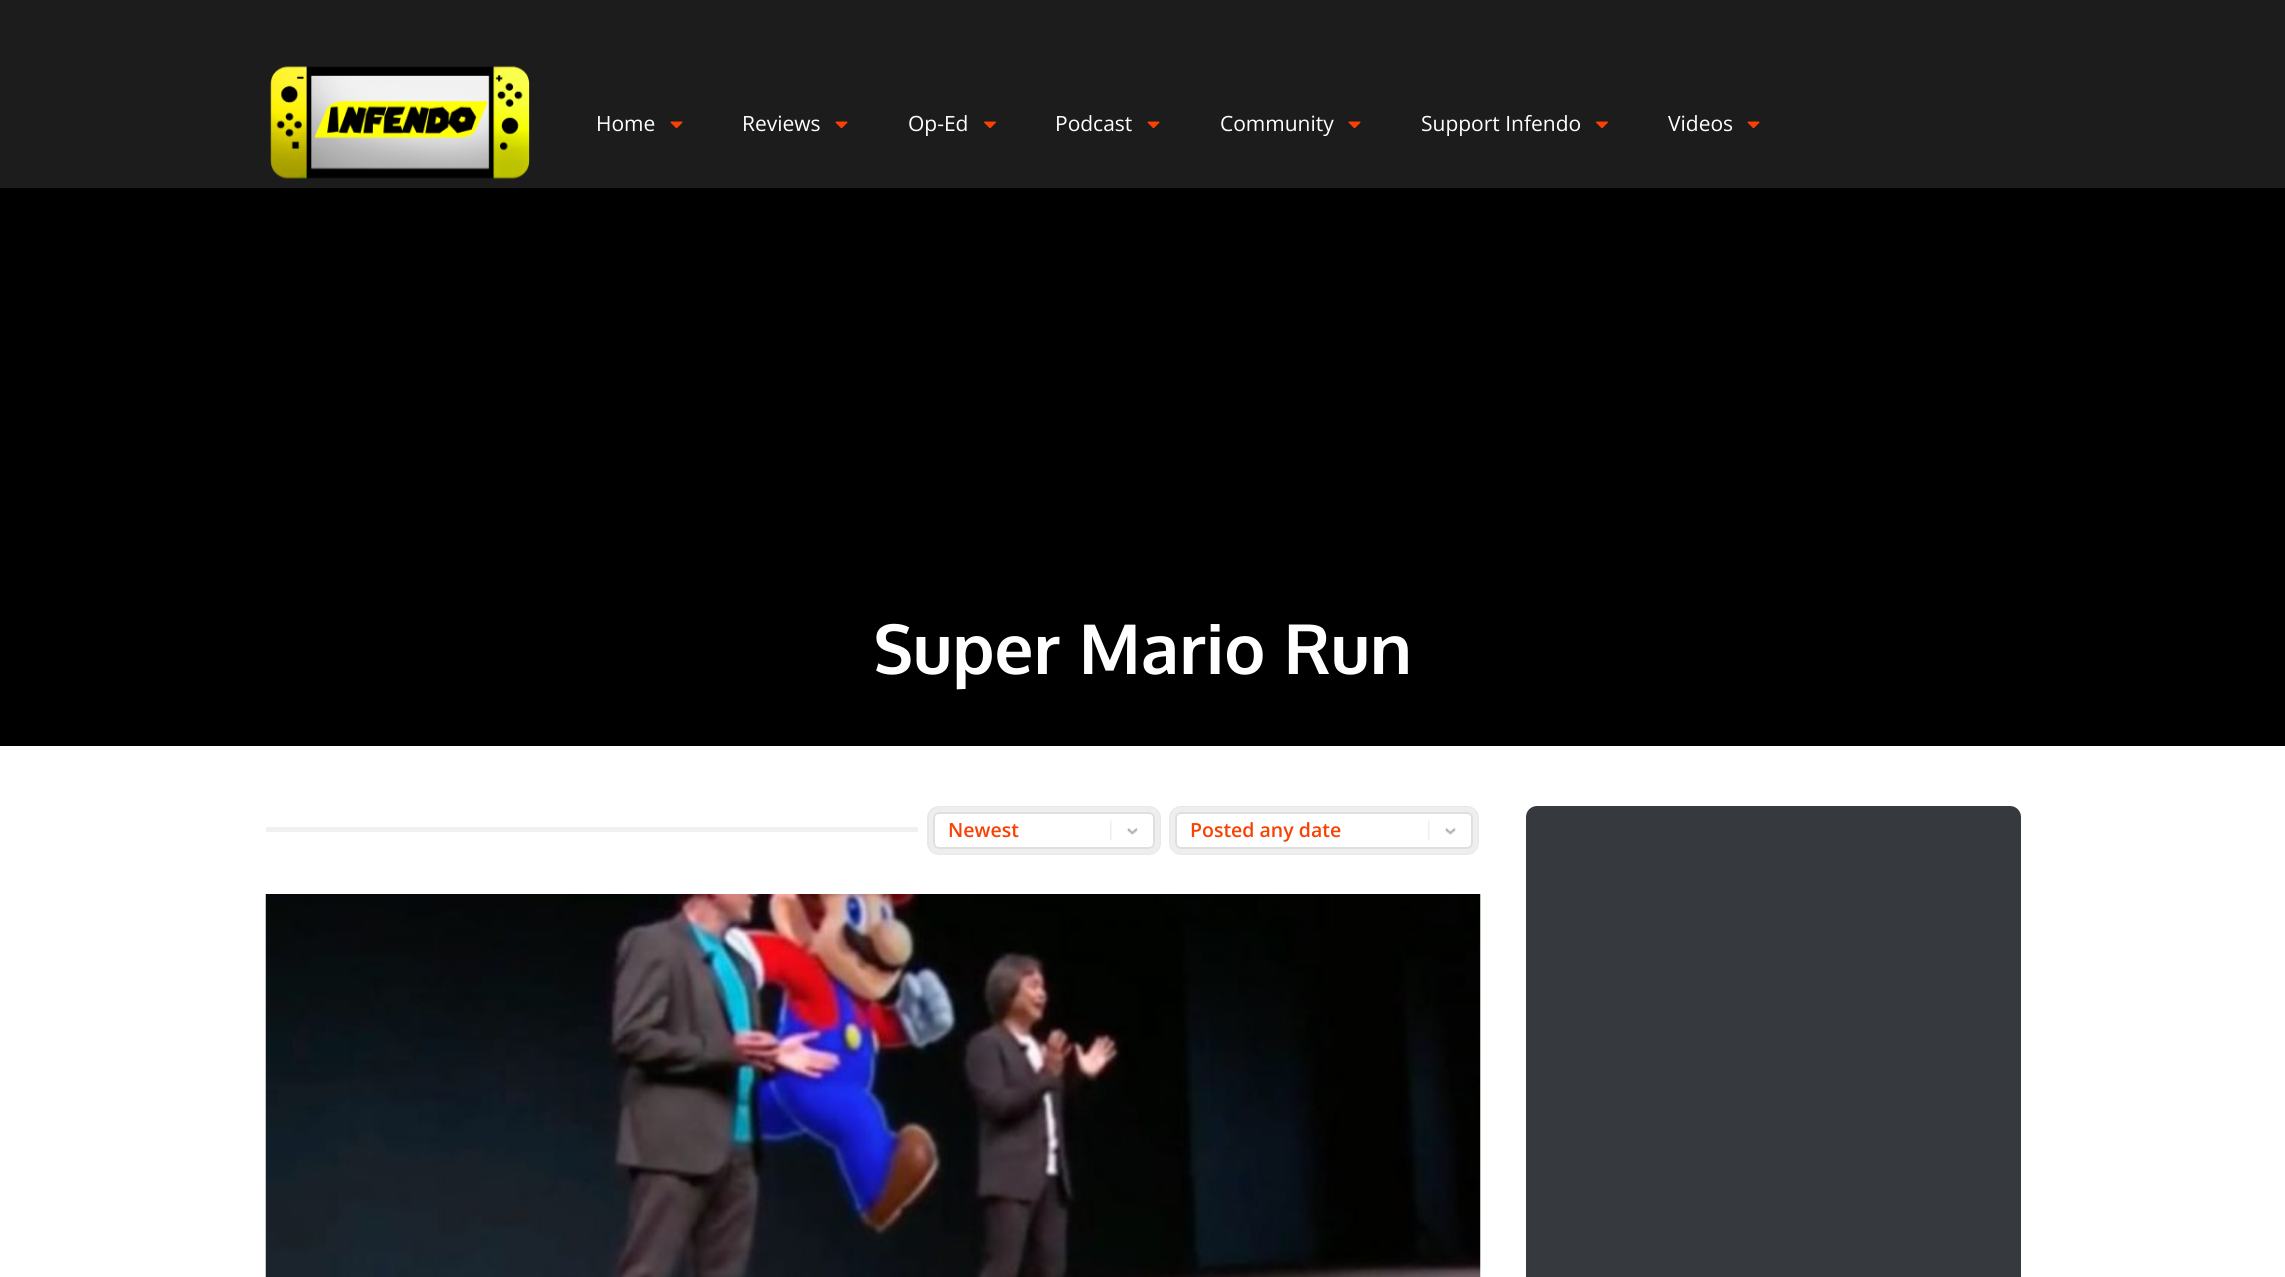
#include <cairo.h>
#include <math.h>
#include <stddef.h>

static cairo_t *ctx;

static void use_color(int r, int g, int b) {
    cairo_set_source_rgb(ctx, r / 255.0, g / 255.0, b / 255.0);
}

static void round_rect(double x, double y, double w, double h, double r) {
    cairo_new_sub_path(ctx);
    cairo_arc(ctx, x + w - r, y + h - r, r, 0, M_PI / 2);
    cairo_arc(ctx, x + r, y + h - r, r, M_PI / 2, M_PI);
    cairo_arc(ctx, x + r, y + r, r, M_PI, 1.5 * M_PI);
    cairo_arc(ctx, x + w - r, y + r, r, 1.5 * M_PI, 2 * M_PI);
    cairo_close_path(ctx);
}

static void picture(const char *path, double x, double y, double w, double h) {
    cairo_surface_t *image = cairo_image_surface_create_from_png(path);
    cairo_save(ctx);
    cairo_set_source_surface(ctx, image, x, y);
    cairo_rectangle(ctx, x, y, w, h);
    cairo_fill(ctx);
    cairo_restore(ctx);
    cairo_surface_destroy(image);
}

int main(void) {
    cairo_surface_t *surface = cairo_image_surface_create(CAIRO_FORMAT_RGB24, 2285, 1277);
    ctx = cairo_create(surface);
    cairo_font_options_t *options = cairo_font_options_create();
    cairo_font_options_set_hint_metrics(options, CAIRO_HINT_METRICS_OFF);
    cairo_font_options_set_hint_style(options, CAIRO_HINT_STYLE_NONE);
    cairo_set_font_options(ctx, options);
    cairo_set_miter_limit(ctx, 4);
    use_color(255, 255, 255);
    cairo_paint(ctx);
    use_color(28, 28, 28);
    cairo_rectangle(ctx, 0, 0, 2285, 188);
    cairo_fill(ctx);
    picture("img1.png", 270, 66, 260, 113);
    cairo_select_font_face(ctx, "Open Sans", CAIRO_FONT_SLANT_NORMAL, CAIRO_FONT_WEIGHT_NORMAL);
    cairo_set_font_size(ctx, 21);
    use_color(255, 255, 255);
    cairo_move_to(ctx, 596, 131);
    cairo_show_text(ctx, "Home");
    picture("img2.png", 670, 121, 13, 8);
    cairo_move_to(ctx, 742, 131);
    cairo_show_text(ctx, "Reviews");
    picture("img2.png", 835, 121, 13, 8);
    cairo_move_to(ctx, 908, 131);
    cairo_show_text(ctx, "Op-Ed");
    picture("img3.png", 984, 121, 12, 8);
    cairo_move_to(ctx, 1055, 131);
    cairo_show_text(ctx, "Podcast");
    picture("img2.png", 1147, 121, 13, 8);
    cairo_move_to(ctx, 1220, 131);
    cairo_show_text(ctx, "Community");
    picture("img2.png", 1348, 121, 13, 8);
    cairo_move_to(ctx, 1421, 131);
    cairo_show_text(ctx, "Support Infendo");
    picture("img3.png", 1596, 121, 12, 8);
    cairo_move_to(ctx, 1668, 131);
    cairo_show_text(ctx, "Videos");
    picture("img2.png", 1747, 121, 13, 8);
    use_color(0, 0, 0);
    cairo_rectangle(ctx, 0, 188, 2285, 558);
    cairo_fill(ctx);
    cairo_select_font_face(ctx, "Oxygen", CAIRO_FONT_SLANT_NORMAL, CAIRO_FONT_WEIGHT_BOLD);
    cairo_set_font_size(ctx, 69);
    use_color(255, 255, 255);
    cairo_move_to(ctx, 873, 674);
    cairo_show_text(ctx, "Super Mario Run");
    use_color(241, 241, 241);
    cairo_rectangle(ctx, 266, 827, 652, 5);
    cairo_fill(ctx);
    round_rect(930, 809, 228, 43, 9);
    use_color(232, 232, 232);
    cairo_set_line_width(ctx, 6);
    cairo_stroke(ctx);
    round_rect(931.5, 809.5, 226, 42, 8.5);
    cairo_set_source_rgba(ctx, 1, 1, 1, 0.25);
    cairo_set_line_width(ctx, 5);
    cairo_stroke(ctx);
    use_color(255, 255, 255);
    round_rect(933, 812, 222, 37, 6);
    cairo_fill(ctx);
    picture("img4.png", 1110, 820, 28, 20);
    round_rect(934, 813, 220, 35, 5);
    use_color(223, 223, 223);
    cairo_set_line_width(ctx, 2);
    cairo_stroke(ctx);
    cairo_select_font_face(ctx, "Open Sans SemiBold", CAIRO_FONT_SLANT_NORMAL, CAIRO_FONT_WEIGHT_NORMAL);
    cairo_set_font_size(ctx, 19.5);
    use_color(248, 65, 3);
    cairo_move_to(ctx, 948, 837);
    cairo_show_text(ctx, "Newest");
    round_rect(1172, 809, 304, 43, 9);
    use_color(232, 232, 232);
    cairo_set_line_width(ctx, 6);
    cairo_stroke(ctx);
    round_rect(1172.5, 809.5, 303, 42, 8.5);
    cairo_set_source_rgba(ctx, 1, 1, 1, 0.25);
    cairo_set_line_width(ctx, 5);
    cairo_stroke(ctx);
    use_color(255, 255, 255);
    round_rect(1175, 812, 298, 37, 6);
    cairo_fill(ctx);
    picture("img5.png", 1428, 820, 28, 20);
    round_rect(1176, 813, 296, 35, 5);
    use_color(223, 223, 223);
    cairo_set_line_width(ctx, 2);
    cairo_stroke(ctx);
    use_color(248, 65, 3);
    cairo_move_to(ctx, 1190, 837);
    cairo_show_text(ctx, "Posted any date");
    picture("img6.png", 265, 894, 1216, 383);
    use_color(54, 57, 62);
    round_rect(1526, 806, 495, 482, 11);
    cairo_fill(ctx);
    cairo_surface_write_to_png(surface, "result.png");
    cairo_font_options_destroy(options);
    cairo_destroy(ctx);
    cairo_surface_destroy(surface);
    return 0;
}
